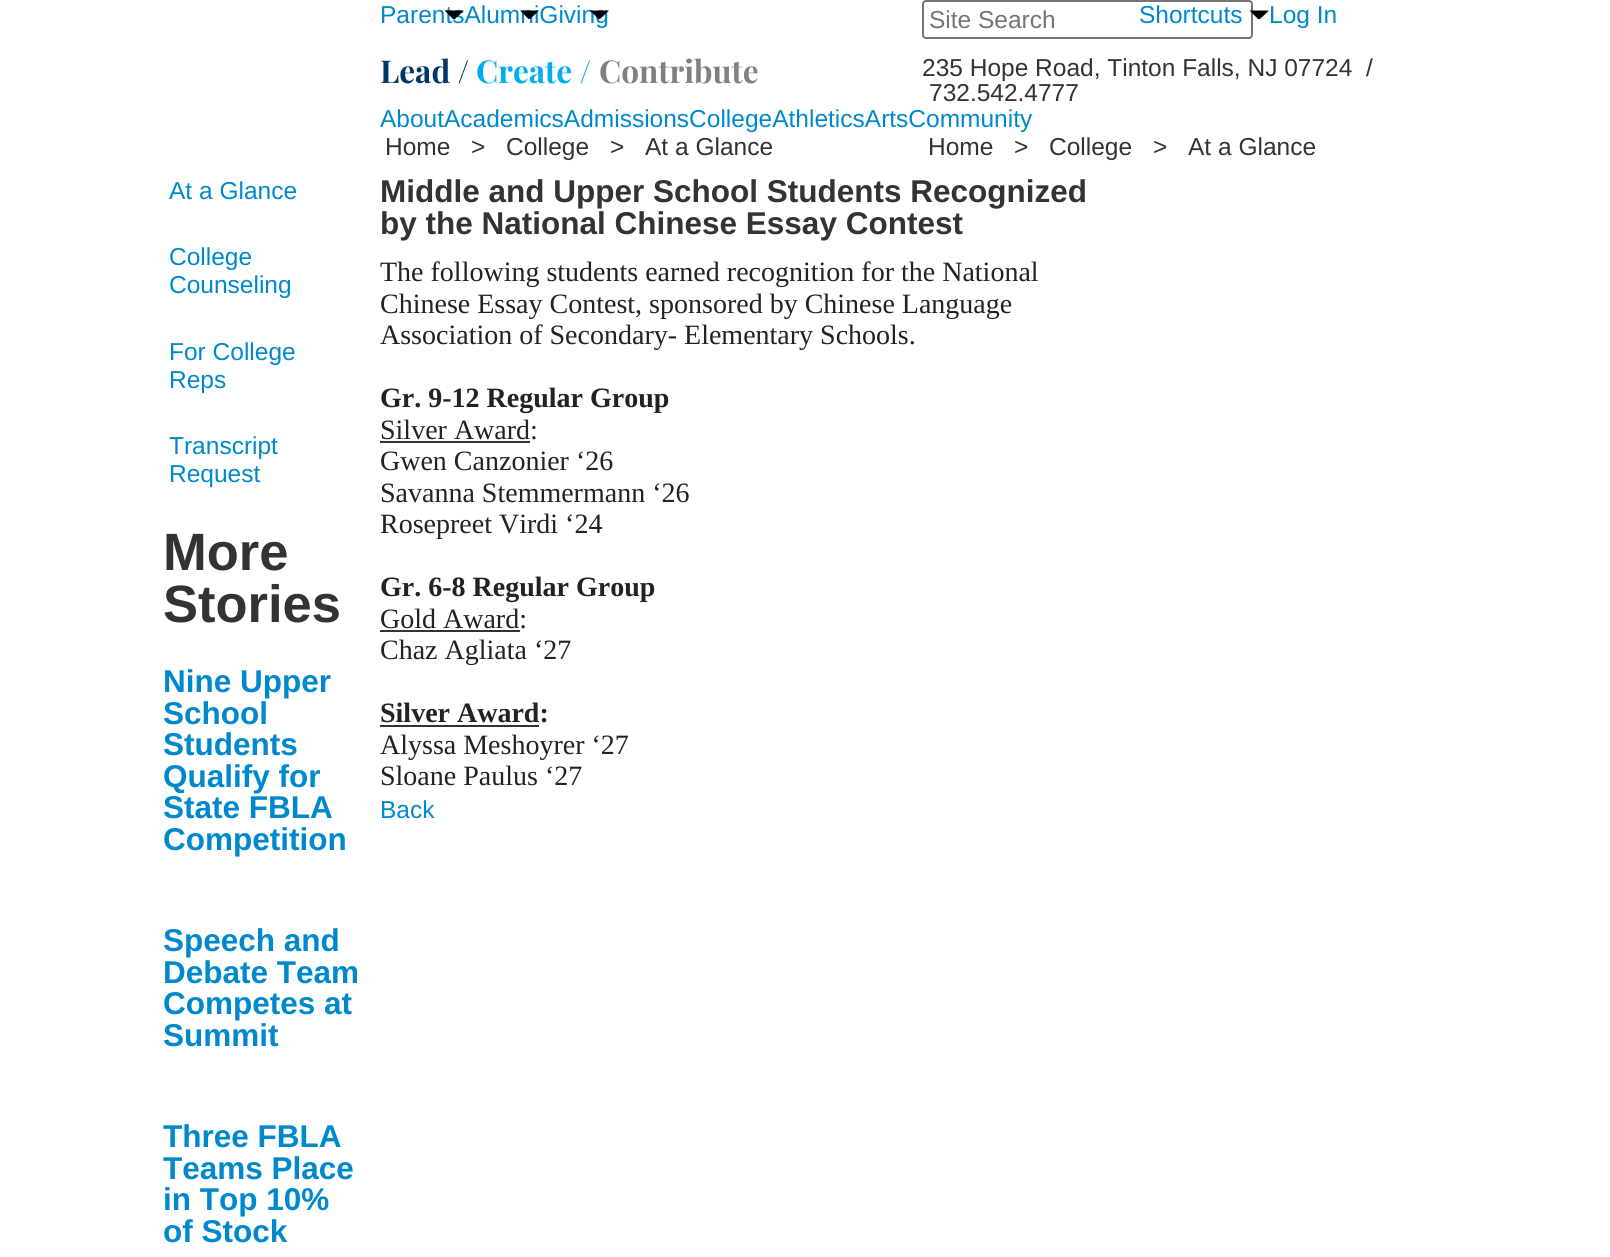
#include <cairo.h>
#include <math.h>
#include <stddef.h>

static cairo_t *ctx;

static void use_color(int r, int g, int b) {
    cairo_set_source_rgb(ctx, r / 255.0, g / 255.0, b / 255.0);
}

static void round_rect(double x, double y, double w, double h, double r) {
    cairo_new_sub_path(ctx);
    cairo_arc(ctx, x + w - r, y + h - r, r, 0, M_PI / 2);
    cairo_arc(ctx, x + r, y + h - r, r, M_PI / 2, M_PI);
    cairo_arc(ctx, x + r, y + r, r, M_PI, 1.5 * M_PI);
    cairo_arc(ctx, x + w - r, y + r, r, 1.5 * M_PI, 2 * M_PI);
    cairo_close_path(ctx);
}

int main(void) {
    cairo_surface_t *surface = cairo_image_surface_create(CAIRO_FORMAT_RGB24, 1610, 1257);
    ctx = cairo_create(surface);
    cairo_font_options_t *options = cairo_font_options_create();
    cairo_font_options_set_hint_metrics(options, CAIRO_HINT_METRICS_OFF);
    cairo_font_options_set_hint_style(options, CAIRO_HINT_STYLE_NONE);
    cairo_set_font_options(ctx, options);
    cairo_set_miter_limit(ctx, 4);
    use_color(255, 255, 255);
    cairo_paint(ctx);
    cairo_select_font_face(ctx, "Liberation Sans", CAIRO_FONT_SLANT_NORMAL, CAIRO_FONT_WEIGHT_NORMAL);
    cairo_set_font_size(ctx, 24.5);
    use_color(0, 136, 204);
    cairo_move_to(ctx, 380, 23);
    cairo_show_text(ctx, "ParentsAlumniGiving");
    use_color(0, 0, 0);
    cairo_new_path(ctx);
    cairo_move_to(ctx, 444.5, 10.5);
    cairo_line_to(ctx, 464, 10.5);
    cairo_line_to(ctx, 455, 19);
    cairo_line_to(ctx, 453, 19);
    cairo_close_path(ctx);
    cairo_fill(ctx);
    cairo_new_path(ctx);
    cairo_move_to(ctx, 520, 10.5);
    cairo_line_to(ctx, 539, 10.5);
    cairo_line_to(ctx, 530, 19);
    cairo_line_to(ctx, 528.5, 19);
    cairo_close_path(ctx);
    cairo_fill(ctx);
    cairo_new_path(ctx);
    cairo_move_to(ctx, 590, 10.5);
    cairo_line_to(ctx, 609, 10.5);
    cairo_line_to(ctx, 600, 19);
    cairo_line_to(ctx, 598.5, 19);
    cairo_close_path(ctx);
    cairo_fill(ctx);
    round_rect(923, 1, 329, 37, 3);
    use_color(118, 118, 118);
    cairo_stroke(ctx);
    use_color(117, 117, 117);
    cairo_move_to(ctx, 929, 28);
    cairo_show_text(ctx, "Site Search");
    use_color(0, 136, 204);
    cairo_move_to(ctx, 1139, 23);
    cairo_show_text(ctx, "Shortcuts");
    use_color(0, 0, 0);
    cairo_new_path(ctx);
    cairo_move_to(ctx, 1249.5, 10.5);
    cairo_line_to(ctx, 1269, 10.5);
    cairo_line_to(ctx, 1260, 19);
    cairo_line_to(ctx, 1258, 19);
    cairo_close_path(ctx);
    cairo_fill(ctx);
    use_color(0, 136, 204);
    cairo_move_to(ctx, 1269, 23);
    cairo_show_text(ctx, "Log In");
    cairo_select_font_face(ctx, "Playfair Display", CAIRO_FONT_SLANT_NORMAL, CAIRO_FONT_WEIGHT_BOLD);
    cairo_set_font_size(ctx, 31.5);
    use_color(0, 55, 103);
    cairo_move_to(ctx, 380, 83);
    cairo_show_text(ctx, "Lead /");
    use_color(0, 173, 238);
    cairo_move_to(ctx, 476, 83);
    cairo_show_text(ctx, "Create /");
    use_color(128, 128, 128);
    cairo_move_to(ctx, 599, 83);
    cairo_show_text(ctx, "Contribute");
    cairo_select_font_face(ctx, "Liberation Sans", CAIRO_FONT_SLANT_NORMAL, CAIRO_FONT_WEIGHT_NORMAL);
    cairo_set_font_size(ctx, 24.5);
    use_color(51, 51, 51);
    cairo_move_to(ctx, 922, 76);
    cairo_show_text(ctx, "235 Hope Road, Tinton Falls, NJ 07724  /");
    cairo_move_to(ctx, 929, 101);
    cairo_show_text(ctx, "732.542.4777");
    use_color(0, 136, 204);
    cairo_move_to(ctx, 380, 127);
    cairo_show_text(ctx, "AboutAcademicsAdmissionsCollegeAthleticsArtsCommunity");
    use_color(51, 51, 51);
    cairo_move_to(ctx, 385, 155);
    cairo_show_text(ctx, "Home");
    cairo_move_to(ctx, 471, 155);
    cairo_show_text(ctx, ">");
    cairo_move_to(ctx, 506, 155);
    cairo_show_text(ctx, "College");
    cairo_move_to(ctx, 610, 155);
    cairo_show_text(ctx, ">");
    cairo_move_to(ctx, 645, 155);
    cairo_show_text(ctx, "At a Glance");
    cairo_move_to(ctx, 928, 155);
    cairo_show_text(ctx, "Home");
    cairo_move_to(ctx, 1014, 155);
    cairo_show_text(ctx, ">");
    cairo_move_to(ctx, 1049, 155);
    cairo_show_text(ctx, "College");
    cairo_move_to(ctx, 1153, 155);
    cairo_show_text(ctx, ">");
    cairo_move_to(ctx, 1188, 155);
    cairo_show_text(ctx, "At a Glance");
    use_color(0, 136, 204);
    cairo_move_to(ctx, 169, 199);
    cairo_show_text(ctx, "At a Glance");
    cairo_move_to(ctx, 169, 265);
    cairo_show_text(ctx, "College");
    cairo_move_to(ctx, 169, 293);
    cairo_show_text(ctx, "Counseling");
    cairo_move_to(ctx, 169, 360);
    cairo_show_text(ctx, "For College");
    cairo_move_to(ctx, 169, 388);
    cairo_show_text(ctx, "Reps");
    cairo_move_to(ctx, 169, 454);
    cairo_show_text(ctx, "Transcript");
    cairo_move_to(ctx, 169, 482);
    cairo_show_text(ctx, "Request");
    cairo_select_font_face(ctx, "Liberation Sans", CAIRO_FONT_SLANT_NORMAL, CAIRO_FONT_WEIGHT_BOLD);
    cairo_set_font_size(ctx, 52.5);
    use_color(51, 51, 51);
    cairo_move_to(ctx, 163, 570);
    cairo_show_text(ctx, "More");
    cairo_move_to(ctx, 163, 622);
    cairo_show_text(ctx, "Stories");
    cairo_set_font_size(ctx, 31.5);
    use_color(0, 136, 204);
    cairo_move_to(ctx, 163, 692);
    cairo_show_text(ctx, "Nine Upper");
    cairo_move_to(ctx, 163, 724);
    cairo_show_text(ctx, "School");
    cairo_move_to(ctx, 163, 755);
    cairo_show_text(ctx, "Students");
    cairo_move_to(ctx, 163, 787);
    cairo_show_text(ctx, "Qualify for");
    cairo_move_to(ctx, 163, 818);
    cairo_show_text(ctx, "State FBLA");
    cairo_move_to(ctx, 163, 850);
    cairo_show_text(ctx, "Competition");
    cairo_move_to(ctx, 163, 951);
    cairo_show_text(ctx, "Speech and");
    cairo_move_to(ctx, 163, 983);
    cairo_show_text(ctx, "Debate Team");
    cairo_move_to(ctx, 163, 1014);
    cairo_show_text(ctx, "Competes at");
    cairo_move_to(ctx, 163, 1046);
    cairo_show_text(ctx, "Summit");
    cairo_move_to(ctx, 163, 1147);
    cairo_show_text(ctx, "Three FBLA");
    cairo_move_to(ctx, 163, 1179);
    cairo_show_text(ctx, "Teams Place");
    cairo_move_to(ctx, 163, 1210);
    cairo_show_text(ctx, "in Top 10%");
    cairo_move_to(ctx, 163, 1242);
    cairo_show_text(ctx, "of Stock");
    use_color(51, 51, 51);
    cairo_move_to(ctx, 380, 202);
    cairo_show_text(ctx, "Middle and Upper School Students Recognized");
    cairo_move_to(ctx, 380, 234);
    cairo_show_text(ctx, "by the National Chinese Essay Contest");
    cairo_select_font_face(ctx, "Liberation Serif", CAIRO_FONT_SLANT_NORMAL, CAIRO_FONT_WEIGHT_NORMAL);
    cairo_set_font_size(ctx, 28);
    use_color(34, 34, 34);
    cairo_move_to(ctx, 380, 281);
    cairo_show_text(ctx, "The following students earned recognition for the National");
    cairo_move_to(ctx, 380, 313);
    cairo_show_text(ctx, "Chinese Essay Contest, sponsored by Chinese Language");
    cairo_move_to(ctx, 380, 344);
    cairo_show_text(ctx, "Association of Secondary- Elementary Schools.");
    cairo_select_font_face(ctx, "Liberation Serif", CAIRO_FONT_SLANT_NORMAL, CAIRO_FONT_WEIGHT_BOLD);
    cairo_move_to(ctx, 380, 407);
    cairo_show_text(ctx, "Gr. 9-12 Regular Group");
    cairo_select_font_face(ctx, "Liberation Serif", CAIRO_FONT_SLANT_NORMAL, CAIRO_FONT_WEIGHT_NORMAL);
    cairo_move_to(ctx, 380, 439);
    cairo_show_text(ctx, "Silver Award:");
    use_color(51, 51, 51);
    cairo_rectangle(ctx, 380, 441, 150, 2);
    cairo_fill(ctx);
    use_color(34, 34, 34);
    cairo_move_to(ctx, 380, 470);
    cairo_show_text(ctx, "Gwen Canzonier ‘26");
    cairo_move_to(ctx, 380, 502);
    cairo_show_text(ctx, "Savanna Stemmermann ‘26");
    cairo_move_to(ctx, 380, 533);
    cairo_show_text(ctx, "Rosepreet Virdi ‘24");
    cairo_select_font_face(ctx, "Liberation Serif", CAIRO_FONT_SLANT_NORMAL, CAIRO_FONT_WEIGHT_BOLD);
    cairo_move_to(ctx, 380, 596);
    cairo_show_text(ctx, "Gr. 6-8 Regular Group");
    cairo_select_font_face(ctx, "Liberation Serif", CAIRO_FONT_SLANT_NORMAL, CAIRO_FONT_WEIGHT_NORMAL);
    cairo_move_to(ctx, 380, 628);
    cairo_show_text(ctx, "Gold Award:");
    use_color(51, 51, 51);
    cairo_rectangle(ctx, 380, 630, 140, 2);
    cairo_fill(ctx);
    use_color(34, 34, 34);
    cairo_move_to(ctx, 380, 659);
    cairo_show_text(ctx, "Chaz Agliata ‘27");
    cairo_select_font_face(ctx, "Liberation Serif", CAIRO_FONT_SLANT_NORMAL, CAIRO_FONT_WEIGHT_BOLD);
    cairo_move_to(ctx, 380, 722);
    cairo_show_text(ctx, "Silver Award:");
    use_color(51, 51, 51);
    cairo_rectangle(ctx, 380, 725, 159, 2);
    cairo_fill(ctx);
    cairo_select_font_face(ctx, "Liberation Serif", CAIRO_FONT_SLANT_NORMAL, CAIRO_FONT_WEIGHT_NORMAL);
    use_color(34, 34, 34);
    cairo_move_to(ctx, 380, 754);
    cairo_show_text(ctx, "Alyssa Meshoyrer ‘27");
    cairo_move_to(ctx, 380, 785);
    cairo_show_text(ctx, "Sloane Paulus ‘27");
    cairo_select_font_face(ctx, "Liberation Sans", CAIRO_FONT_SLANT_NORMAL, CAIRO_FONT_WEIGHT_NORMAL);
    cairo_set_font_size(ctx, 24.5);
    use_color(0, 136, 204);
    cairo_move_to(ctx, 380, 818);
    cairo_show_text(ctx, "Back");
    cairo_surface_write_to_png(surface, "result.png");
    cairo_font_options_destroy(options);
    cairo_destroy(ctx);
    cairo_surface_destroy(surface);
    return 0;
}
